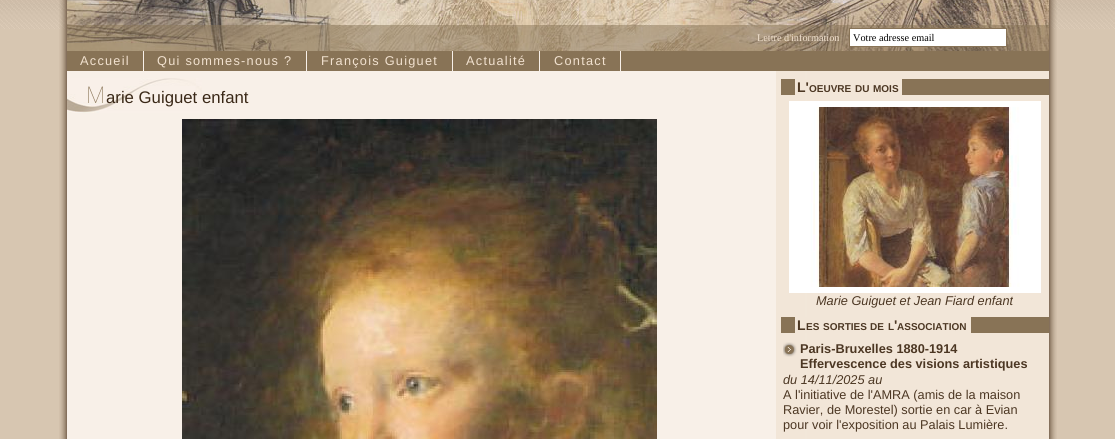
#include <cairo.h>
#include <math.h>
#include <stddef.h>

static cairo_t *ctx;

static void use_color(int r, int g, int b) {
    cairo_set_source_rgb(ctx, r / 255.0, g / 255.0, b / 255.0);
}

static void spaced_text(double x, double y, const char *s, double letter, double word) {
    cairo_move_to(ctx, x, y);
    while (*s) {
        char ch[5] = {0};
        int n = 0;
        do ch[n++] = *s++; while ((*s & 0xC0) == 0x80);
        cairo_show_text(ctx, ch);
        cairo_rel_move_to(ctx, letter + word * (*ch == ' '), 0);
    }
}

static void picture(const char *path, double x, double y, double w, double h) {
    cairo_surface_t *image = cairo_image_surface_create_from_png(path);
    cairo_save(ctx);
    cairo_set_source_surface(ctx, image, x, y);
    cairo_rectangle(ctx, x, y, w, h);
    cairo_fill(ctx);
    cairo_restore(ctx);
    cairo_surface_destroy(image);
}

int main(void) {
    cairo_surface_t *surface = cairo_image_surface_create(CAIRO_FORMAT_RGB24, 1115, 439);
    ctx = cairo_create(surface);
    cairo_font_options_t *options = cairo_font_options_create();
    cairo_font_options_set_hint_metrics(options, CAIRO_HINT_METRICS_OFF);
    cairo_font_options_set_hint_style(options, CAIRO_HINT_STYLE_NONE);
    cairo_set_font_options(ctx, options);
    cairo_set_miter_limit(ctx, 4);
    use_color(215, 198, 177);
    cairo_paint(ctx);
    picture("img1.png", 0, 0, 1115, 29);
    picture("img2.png", 59, 0, 998, 439);
    picture("img3.png", 67, 0, 982, 51);
    cairo_set_source_rgba(ctx, 0.537, 0.455, 0.337, 0.5);
    cairo_rectangle(ctx, 67, 25, 982, 26);
    cairo_fill(ctx);
    cairo_select_font_face(ctx, "Liberation Serif", CAIRO_FONT_SLANT_NORMAL, CAIRO_FONT_WEIGHT_NORMAL);
    cairo_set_font_size(ctx, 10.25);
    use_color(241, 225, 207);
    cairo_move_to(ctx, 757, 41);
    cairo_show_text(ctx, "Lettre d'information");
    use_color(255, 255, 255);
    cairo_rectangle(ctx, 849.5, 28.5, 157, 18);
    cairo_fill_preserve(ctx);
    use_color(136, 115, 86);
    cairo_set_line_width(ctx, 1);
    cairo_stroke(ctx);
    use_color(0, 0, 0);
    cairo_move_to(ctx, 853, 41);
    cairo_show_text(ctx, "Votre adresse email");
    use_color(136, 115, 86);
    cairo_rectangle(ctx, 67, 51, 982, 20);
    cairo_fill(ctx);
    use_color(248, 240, 233);
    cairo_rectangle(ctx, 143, 51, 1, 20);
    cairo_fill(ctx);
    cairo_select_font_face(ctx, "Liberation Sans", CAIRO_FONT_SLANT_NORMAL, CAIRO_FONT_WEIGHT_NORMAL);
    cairo_set_font_size(ctx, 12.75);
    use_color(241, 225, 207);
    spaced_text(80, 65, "Accueil", 1.25, 0);
    use_color(248, 240, 233);
    cairo_rectangle(ctx, 306, 51, 1, 20);
    cairo_fill(ctx);
    use_color(241, 225, 207);
    spaced_text(157, 65, "Qui sommes-nous ?", 1.25, 0);
    use_color(248, 240, 233);
    cairo_rectangle(ctx, 452, 51, 1, 20);
    cairo_fill(ctx);
    use_color(241, 225, 207);
    spaced_text(321, 65, "François Guiguet", 1.25, 0);
    use_color(248, 240, 233);
    cairo_rectangle(ctx, 539, 51, 1, 20);
    cairo_fill(ctx);
    use_color(241, 225, 207);
    spaced_text(466, 65, "Actualité", 1.25, 0);
    use_color(248, 240, 233);
    cairo_rectangle(ctx, 620, 51, 1, 20);
    cairo_fill(ctx);
    use_color(241, 225, 207);
    spaced_text(554, 65, "Contact", 1.25, 0);
    picture("img4.png", 67, 78, 135, 35);
    cairo_select_font_face(ctx, "Noto Sans Thin", CAIRO_FONT_SLANT_NORMAL, CAIRO_FONT_WEIGHT_NORMAL);
    cairo_set_font_size(ctx, 23);
    use_color(136, 115, 86);
    cairo_move_to(ctx, 86, 103);
    cairo_show_text(ctx, "M");
    cairo_select_font_face(ctx, "Liberation Sans", CAIRO_FONT_SLANT_NORMAL, CAIRO_FONT_WEIGHT_NORMAL);
    cairo_set_font_size(ctx, 16.75);
    use_color(58, 40, 23);
    cairo_move_to(ctx, 106, 103);
    cairo_show_text(ctx, "arie Guiguet enfant");
    picture("img5.png", 182, 119, 475, 320);
    use_color(136, 115, 86);
    cairo_rectangle(ctx, 781, 79, 268, 16);
    cairo_fill(ctx);
    use_color(242, 230, 216);
    cairo_rectangle(ctx, 795, 79, 107, 16);
    cairo_fill(ctx);
    cairo_select_font_face(ctx, "Liberation Sans", CAIRO_FONT_SLANT_NORMAL, CAIRO_FONT_WEIGHT_BOLD);
    cairo_set_font_size(ctx, 14);
    use_color(76, 55, 35);
    cairo_move_to(ctx, 797, 92);
    cairo_show_text(ctx, "L'");
    cairo_set_font_size(ctx, 10);
    cairo_move_to(ctx, 809, 92);
    cairo_show_text(ctx, "OEUVRE");
    cairo_move_to(ctx, 855, 92);
    cairo_show_text(ctx, "DU");
    cairo_move_to(ctx, 873, 92);
    cairo_show_text(ctx, "MOIS");
    cairo_rectangle(ctx, 792, 104, 246, 186);
    use_color(255, 255, 255);
    cairo_set_line_width(ctx, 6);
    cairo_stroke(ctx);
    picture("img6.png", 795, 107, 240, 180);
    cairo_select_font_face(ctx, "Liberation Sans", CAIRO_FONT_SLANT_ITALIC, CAIRO_FONT_WEIGHT_NORMAL);
    cairo_set_font_size(ctx, 12.75);
    use_color(76, 55, 35);
    cairo_move_to(ctx, 816, 305);
    cairo_show_text(ctx, "Marie Guiguet et Jean Fiard enfant");
    use_color(136, 115, 86);
    cairo_rectangle(ctx, 781, 317, 268, 16);
    cairo_fill(ctx);
    use_color(242, 230, 216);
    cairo_rectangle(ctx, 795, 317, 176, 16);
    cairo_fill(ctx);
    cairo_select_font_face(ctx, "Liberation Sans", CAIRO_FONT_SLANT_NORMAL, CAIRO_FONT_WEIGHT_BOLD);
    cairo_set_font_size(ctx, 14);
    use_color(76, 55, 35);
    cairo_move_to(ctx, 797, 330);
    cairo_show_text(ctx, "L");
    cairo_move_to(ctx, 894, 330);
    cairo_show_text(ctx, "'");
    cairo_set_font_size(ctx, 10);
    cairo_move_to(ctx, 806, 330);
    cairo_show_text(ctx, "ES");
    cairo_move_to(ctx, 823, 330);
    cairo_show_text(ctx, "SORTIES");
    cairo_move_to(ctx, 870, 330);
    cairo_show_text(ctx, "DE");
    cairo_move_to(ctx, 888, 330);
    cairo_show_text(ctx, "L");
    cairo_move_to(ctx, 897, 330);
    cairo_show_text(ctx, "ASSOCIATION");
    picture("img7.png", 783, 342, 14, 15);
    cairo_set_font_size(ctx, 12.75);
    cairo_move_to(ctx, 800, 353);
    cairo_show_text(ctx, "Paris-Bruxelles 1880-1914");
    cairo_move_to(ctx, 800, 368);
    cairo_show_text(ctx, "Effervescence des visions artistiques");
    cairo_select_font_face(ctx, "Liberation Sans", CAIRO_FONT_SLANT_ITALIC, CAIRO_FONT_WEIGHT_NORMAL);
    cairo_move_to(ctx, 783, 384);
    cairo_show_text(ctx, "du 14/11/2025 au");
    cairo_select_font_face(ctx, "Liberation Sans", CAIRO_FONT_SLANT_NORMAL, CAIRO_FONT_WEIGHT_NORMAL);
    cairo_move_to(ctx, 783, 399);
    cairo_show_text(ctx, "A l'initiative de l'AMRA (amis de la maison");
    cairo_move_to(ctx, 783, 414);
    cairo_show_text(ctx, "Ravier, de Morestel) sortie en car à Evian");
    cairo_move_to(ctx, 783, 429);
    cairo_show_text(ctx, "pour voir l'exposition au Palais Lumière.");
    cairo_surface_write_to_png(surface, "result.png");
    cairo_font_options_destroy(options);
    cairo_destroy(ctx);
    cairo_surface_destroy(surface);
    return 0;
}
